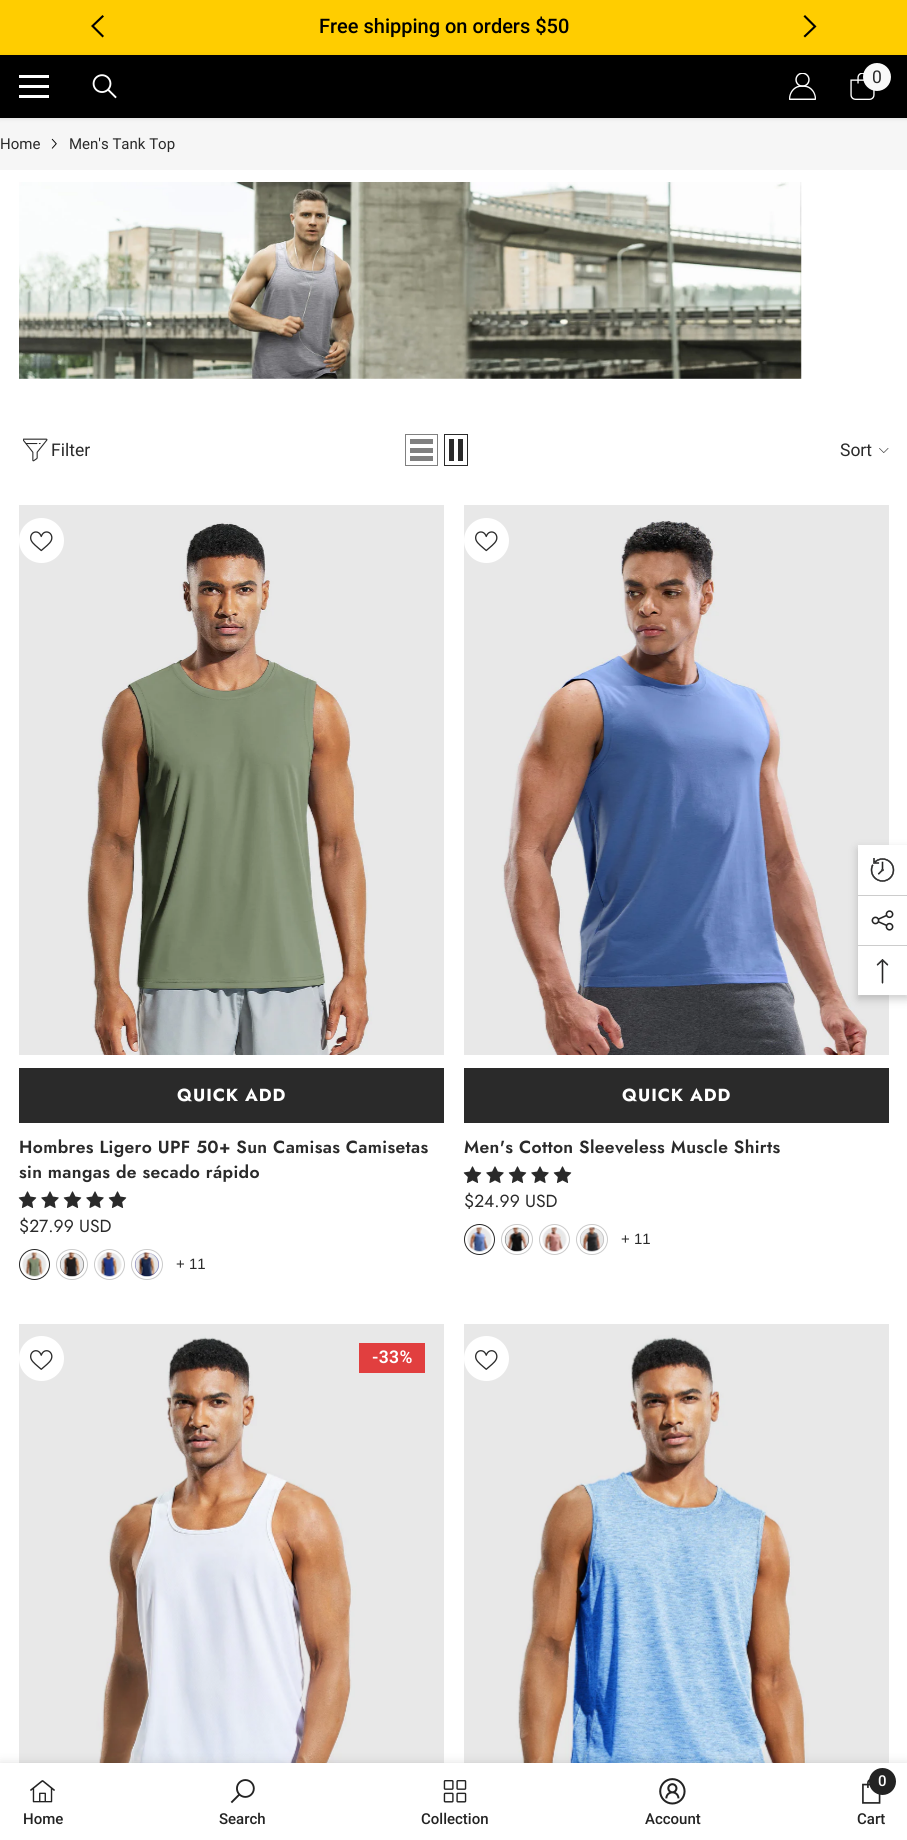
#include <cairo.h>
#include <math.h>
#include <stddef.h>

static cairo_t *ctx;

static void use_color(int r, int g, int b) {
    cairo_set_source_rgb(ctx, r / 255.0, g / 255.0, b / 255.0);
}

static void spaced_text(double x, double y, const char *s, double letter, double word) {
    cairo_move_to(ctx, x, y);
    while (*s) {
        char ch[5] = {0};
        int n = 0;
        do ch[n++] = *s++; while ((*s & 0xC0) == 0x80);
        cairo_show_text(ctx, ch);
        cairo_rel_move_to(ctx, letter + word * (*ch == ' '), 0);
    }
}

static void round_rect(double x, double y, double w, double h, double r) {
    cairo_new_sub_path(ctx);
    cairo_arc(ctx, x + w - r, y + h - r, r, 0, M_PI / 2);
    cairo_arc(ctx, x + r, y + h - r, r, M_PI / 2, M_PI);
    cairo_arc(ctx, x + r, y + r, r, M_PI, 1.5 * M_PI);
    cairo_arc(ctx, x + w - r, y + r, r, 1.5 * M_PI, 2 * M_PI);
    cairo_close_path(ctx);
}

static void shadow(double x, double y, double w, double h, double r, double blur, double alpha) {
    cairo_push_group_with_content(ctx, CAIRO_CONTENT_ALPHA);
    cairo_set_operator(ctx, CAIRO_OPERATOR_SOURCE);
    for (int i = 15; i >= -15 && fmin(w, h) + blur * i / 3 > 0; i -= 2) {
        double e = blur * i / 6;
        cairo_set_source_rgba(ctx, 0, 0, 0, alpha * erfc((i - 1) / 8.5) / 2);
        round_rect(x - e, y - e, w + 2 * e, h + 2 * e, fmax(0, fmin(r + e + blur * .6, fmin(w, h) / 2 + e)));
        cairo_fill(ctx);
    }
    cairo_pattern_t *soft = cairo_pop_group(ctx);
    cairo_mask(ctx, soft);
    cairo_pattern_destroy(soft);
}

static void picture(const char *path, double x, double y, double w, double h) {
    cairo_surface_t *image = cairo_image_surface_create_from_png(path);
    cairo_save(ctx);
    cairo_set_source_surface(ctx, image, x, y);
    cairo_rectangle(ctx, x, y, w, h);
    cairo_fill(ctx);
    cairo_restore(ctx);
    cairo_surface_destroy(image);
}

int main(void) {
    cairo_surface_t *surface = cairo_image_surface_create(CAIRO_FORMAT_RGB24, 907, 1840);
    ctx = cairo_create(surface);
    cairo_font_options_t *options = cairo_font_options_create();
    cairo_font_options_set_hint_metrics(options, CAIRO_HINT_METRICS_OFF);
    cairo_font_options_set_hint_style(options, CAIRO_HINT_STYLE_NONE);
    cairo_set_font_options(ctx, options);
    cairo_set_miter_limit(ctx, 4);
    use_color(255, 255, 255);
    cairo_paint(ctx);
    use_color(255, 205, 0);
    cairo_rectangle(ctx, 0, 0, 907, 55);
    cairo_fill(ctx);
    use_color(0, 0, 0);
    cairo_new_path(ctx);
    cairo_move_to(ctx, 104, 16.5);
    cairo_line_to(ctx, 102.5, 15);
    cairo_line_to(ctx, 91, 26);
    cairo_line_to(ctx, 102.5, 37.5);
    cairo_line_to(ctx, 104, 36);
    cairo_line_to(ctx, 94, 26);
    cairo_close_path(ctx);
    cairo_fill(ctx);
    cairo_select_font_face(ctx, "Roboto Medium", CAIRO_FONT_SLANT_NORMAL, CAIRO_FONT_WEIGHT_NORMAL);
    cairo_set_font_size(ctx, 20);
    cairo_move_to(ctx, 319, 33);
    cairo_show_text(ctx, "Free shipping on orders $50");
    cairo_new_path(ctx);
    cairo_move_to(ctx, 805, 15);
    cairo_line_to(ctx, 803.5, 16.5);
    cairo_line_to(ctx, 813.5, 26.5);
    cairo_line_to(ctx, 803.5, 36);
    cairo_line_to(ctx, 805, 37.5);
    cairo_line_to(ctx, 816.5, 26.5);
    cairo_close_path(ctx);
    cairo_fill(ctx);
    use_color(246, 246, 246);
    cairo_rectangle(ctx, 0, 118, 907, 52);
    cairo_fill(ctx);
    use_color(0, 0, 0);
    shadow(0, 56, 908, 63, 0, 2, 0.1);
    use_color(0, 0, 0);
    cairo_rectangle(ctx, 0, 55, 907, 63);
    cairo_fill(ctx);
    use_color(255, 255, 255);
    cairo_rectangle(ctx, 19, 85, 30, 3);
    cairo_fill(ctx);
    cairo_rectangle(ctx, 19, 75, 30, 3);
    cairo_fill(ctx);
    cairo_rectangle(ctx, 19, 95, 30, 3);
    cairo_fill(ctx);
    picture("img1.png", 92, 74, 25, 25);
    picture("img2.png", 789, 73, 27, 27);
    picture("img3.png", 850, 73, 25, 27);
    use_color(248, 248, 248);
    cairo_arc(ctx, 877, 77, 14, 0, 2 * M_PI);
    cairo_fill(ctx);
    cairo_select_font_face(ctx, "Roboto", CAIRO_FONT_SLANT_NORMAL, CAIRO_FONT_WEIGHT_NORMAL);
    cairo_set_font_size(ctx, 17.5);
    use_color(42, 42, 42);
    cairo_move_to(ctx, 872, 83);
    cairo_show_text(ctx, "0");
    cairo_set_font_size(ctx, 15);
    cairo_move_to(ctx, 0, 149);
    cairo_show_text(ctx, "Home");
    picture("img4.png", 51, 138, 6, 11);
    cairo_move_to(ctx, 69, 149);
    cairo_show_text(ctx, "Men's Tank Top");
    picture("img5.png", 19, 182, 783, 197);
    picture("img6.png", 23, 438, 25, 24);
    cairo_set_font_size(ctx, 17.5);
    cairo_move_to(ctx, 51, 456);
    cairo_show_text(ctx, "Filter");
    cairo_rectangle(ctx, 405.5, 434.5, 32, 31);
    use_color(128, 128, 128);
    cairo_set_line_width(ctx, 1);
    cairo_stroke(ctx);
    cairo_rectangle(ctx, 410, 456, 23, 5);
    cairo_fill(ctx);
    cairo_rectangle(ctx, 410, 448, 23, 5);
    cairo_fill(ctx);
    cairo_rectangle(ctx, 410, 439, 23, 5);
    cairo_fill(ctx);
    cairo_rectangle(ctx, 444.5, 434.5, 23, 31);
    use_color(42, 42, 42);
    cairo_stroke(ctx);
    cairo_rectangle(ctx, 458, 439, 5, 22);
    cairo_fill(ctx);
    cairo_rectangle(ctx, 449, 439, 5, 22);
    cairo_fill(ctx);
    cairo_move_to(ctx, 840, 456);
    cairo_show_text(ctx, "Sort");
    picture("img7.png", 879, 448, 10, 5);
    picture("img8.png", 19, 505, 425, 550);
    use_color(255, 255, 255);
    cairo_arc(ctx, 41.5, 540.5, 22.5, 0, 2 * M_PI);
    cairo_fill(ctx);
    picture("img9.png", 30, 531, 23, 21);
    use_color(42, 42, 42);
    cairo_rectangle(ctx, 19, 1068, 425, 55);
    cairo_fill(ctx);
    cairo_select_font_face(ctx, "Jost", CAIRO_FONT_SLANT_NORMAL, CAIRO_FONT_WEIGHT_BOLD);
    use_color(255, 255, 255);
    spaced_text(177, 1101, "QUICK ADD", 0.9, 0);
    cairo_select_font_face(ctx, "Jost SemiBold", CAIRO_FONT_SLANT_NORMAL, CAIRO_FONT_WEIGHT_NORMAL);
    use_color(42, 42, 42);
    spaced_text(19, 1153, "Hombres Ligero UPF 50+ Sun Camisas Camisetas", 0.35, 0);
    spaced_text(19, 1178, "sin mangas de secado rápido", 0.35, 0);
    picture("img10.png", 18, 1191, 19, 17);
    picture("img11.png", 41, 1191, 18, 17);
    picture("img10.png", 63, 1191, 19, 17);
    picture("img11.png", 86, 1191, 18, 17);
    picture("img10.png", 108, 1191, 19, 17);
    cairo_select_font_face(ctx, "Jost", CAIRO_FONT_SLANT_NORMAL, CAIRO_FONT_WEIGHT_NORMAL);
    cairo_move_to(ctx, 19, 1232);
    cairo_show_text(ctx, "$27.99 USD");
    cairo_new_path(ctx);
    cairo_arc(ctx, 34.5, 1264.5, 15, 0, 2 * M_PI);
    cairo_stroke(ctx);
    picture("img12.png", 22, 1252, 25, 25);
    round_rect(56.5, 1249.5, 31, 30, 15);
    use_color(203, 203, 203);
    cairo_stroke(ctx);
    use_color(0, 0, 0);
    round_rect(60, 1253, 24, 23, 11.5);
    cairo_fill(ctx);
    picture("img13.png", 59, 1252, 26, 25);
    cairo_arc(ctx, 109.5, 1264.5, 15, 0, 2 * M_PI);
    use_color(203, 203, 203);
    cairo_stroke(ctx);
    picture("img14.png", 97, 1252, 25, 25);
    round_rect(131.5, 1249.5, 31, 30, 15);
    cairo_stroke(ctx);
    use_color(0, 0, 128);
    round_rect(135, 1253, 24, 23, 11.5);
    cairo_fill(ctx);
    picture("img15.png", 134, 1252, 26, 25);
    cairo_select_font_face(ctx, "Liberation Sans", CAIRO_FONT_SLANT_NORMAL, CAIRO_FONT_WEIGHT_NORMAL);
    cairo_set_font_size(ctx, 15);
    use_color(42, 42, 42);
    cairo_move_to(ctx, 176, 1269);
    cairo_show_text(ctx, "+ 11");
    picture("img16.png", 464, 505, 425, 550);
    use_color(255, 255, 255);
    cairo_arc(ctx, 486.5, 540.5, 22.5, 0, 2 * M_PI);
    cairo_fill(ctx);
    picture("img9.png", 475, 531, 23, 21);
    use_color(42, 42, 42);
    cairo_rectangle(ctx, 464, 1068, 425, 55);
    cairo_fill(ctx);
    cairo_select_font_face(ctx, "Jost", CAIRO_FONT_SLANT_NORMAL, CAIRO_FONT_WEIGHT_BOLD);
    cairo_set_font_size(ctx, 17.5);
    use_color(255, 255, 255);
    spaced_text(622, 1101, "QUICK ADD", 0.9, 0);
    cairo_select_font_face(ctx, "Jost SemiBold", CAIRO_FONT_SLANT_NORMAL, CAIRO_FONT_WEIGHT_NORMAL);
    use_color(42, 42, 42);
    spaced_text(464, 1153, "Men's Cotton Sleeveless Muscle Shirts", 0.35, 0);
    picture("img10.png", 463, 1166, 19, 17);
    picture("img11.png", 486, 1166, 18, 17);
    picture("img10.png", 508, 1166, 19, 17);
    picture("img11.png", 531, 1166, 18, 17);
    picture("img10.png", 553, 1166, 19, 17);
    cairo_select_font_face(ctx, "Jost", CAIRO_FONT_SLANT_NORMAL, CAIRO_FONT_WEIGHT_NORMAL);
    cairo_move_to(ctx, 464, 1207);
    cairo_show_text(ctx, "$24.99 USD");
    cairo_new_path(ctx);
    cairo_arc(ctx, 479.5, 1239.5, 15, 0, 2 * M_PI);
    cairo_stroke(ctx);
    picture("img17.png", 467, 1227, 25, 25);
    round_rect(501.5, 1224.5, 31, 30, 15);
    use_color(203, 203, 203);
    cairo_stroke(ctx);
    use_color(0, 0, 0);
    round_rect(505, 1228, 24, 23, 11.5);
    cairo_fill(ctx);
    picture("img18.png", 504, 1227, 25, 25);
    cairo_arc(ctx, 554.5, 1239.5, 15, 0, 2 * M_PI);
    use_color(203, 203, 203);
    cairo_stroke(ctx);
    picture("img19.png", 542, 1227, 25, 25);
    round_rect(576.5, 1224.5, 31, 30, 15);
    cairo_stroke(ctx);
    use_color(128, 128, 128);
    round_rect(580, 1228, 24, 23, 11.5);
    cairo_fill(ctx);
    picture("img20.png", 579, 1227, 26, 25);
    cairo_select_font_face(ctx, "Liberation Sans", CAIRO_FONT_SLANT_NORMAL, CAIRO_FONT_WEIGHT_NORMAL);
    cairo_set_font_size(ctx, 15);
    use_color(42, 42, 42);
    cairo_move_to(ctx, 621, 1244);
    cairo_show_text(ctx, "+ 11");
    picture("img21.png", 19, 1324, 425, 439);
    use_color(255, 255, 255);
    cairo_arc(ctx, 41.5, 1358.5, 22.5, 0, 2 * M_PI);
    cairo_fill(ctx);
    picture("img22.png", 30, 1350, 23, 20);
    use_color(225, 63, 63);
    cairo_rectangle(ctx, 359, 1343, 66, 30);
    cairo_fill(ctx);
    cairo_select_font_face(ctx, "Roboto SemiBold", CAIRO_FONT_SLANT_NORMAL, CAIRO_FONT_WEIGHT_NORMAL);
    cairo_set_font_size(ctx, 17.5);
    use_color(255, 255, 255);
    spaced_text(372, 1363, "-33%", 0.35, 0);
    picture("img23.png", 464, 1324, 425, 439);
    cairo_arc(ctx, 486.5, 1358.5, 22.5, 0, 2 * M_PI);
    cairo_fill(ctx);
    picture("img22.png", 475, 1350, 23, 20);
    use_color(0, 0, 0);
    shadow(0, 1763, 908, 77, 0, 5.5, 0.12);
    use_color(255, 255, 255);
    cairo_rectangle(ctx, 0, 1763, 907, 77);
    cairo_fill(ctx);
    picture("img24.png", 30, 1780, 25, 23);
    cairo_select_font_face(ctx, "Roboto Medium", CAIRO_FONT_SLANT_NORMAL, CAIRO_FONT_WEIGHT_NORMAL);
    cairo_set_font_size(ctx, 15);
    use_color(35, 35, 35);
    cairo_move_to(ctx, 23, 1824);
    cairo_show_text(ctx, "Home");
    picture("img25.png", 230, 1779, 25, 25);
    cairo_move_to(ctx, 219, 1824);
    cairo_show_text(ctx, "Search");
    picture("img26.png", 443, 1780, 24, 23);
    cairo_move_to(ctx, 421, 1824);
    cairo_show_text(ctx, "Collection");
    picture("img27.png", 659, 1778, 27, 27);
    cairo_move_to(ctx, 645, 1824);
    cairo_show_text(ctx, "Account");
    picture("img28.png", 862, 1779, 19, 25);
    cairo_arc(ctx, 882.5, 1781.5, 13.5, 0, 2 * M_PI);
    cairo_fill(ctx);
    use_color(255, 255, 255);
    cairo_move_to(ctx, 878, 1786);
    cairo_show_text(ctx, "0");
    use_color(35, 35, 35);
    cairo_move_to(ctx, 857, 1824);
    cairo_show_text(ctx, "Cart");
    use_color(0, 0, 0);
    shadow(858, 849, 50, 150, 0, 4.5, 0.2);
    use_color(255, 255, 255);
    cairo_rectangle(ctx, 858, 845, 49, 150);
    cairo_fill(ctx);
    picture("img29.png", 870, 858, 25, 24);
    use_color(204, 204, 204);
    cairo_rectangle(ctx, 858, 895, 49, 1);
    cairo_fill(ctx);
    picture("img30.png", 871, 910, 23, 21);
    cairo_rectangle(ctx, 858, 945, 49, 1);
    cairo_fill(ctx);
    picture("img31.png", 876, 959, 13, 25);
    cairo_surface_write_to_png(surface, "result.png");
    cairo_font_options_destroy(options);
    cairo_destroy(ctx);
    cairo_surface_destroy(surface);
    return 0;
}
